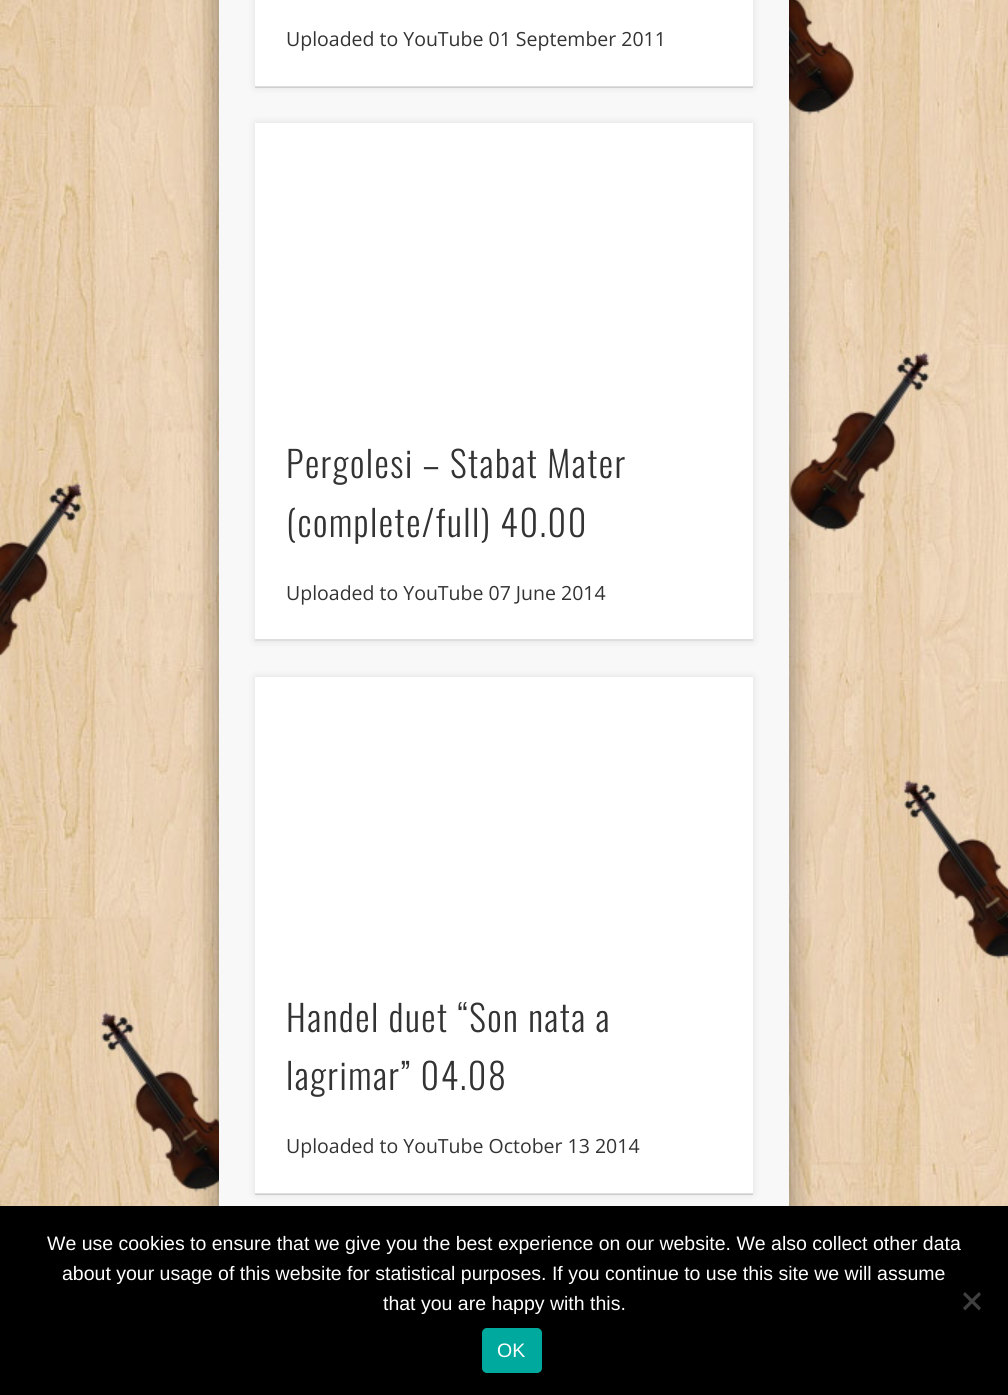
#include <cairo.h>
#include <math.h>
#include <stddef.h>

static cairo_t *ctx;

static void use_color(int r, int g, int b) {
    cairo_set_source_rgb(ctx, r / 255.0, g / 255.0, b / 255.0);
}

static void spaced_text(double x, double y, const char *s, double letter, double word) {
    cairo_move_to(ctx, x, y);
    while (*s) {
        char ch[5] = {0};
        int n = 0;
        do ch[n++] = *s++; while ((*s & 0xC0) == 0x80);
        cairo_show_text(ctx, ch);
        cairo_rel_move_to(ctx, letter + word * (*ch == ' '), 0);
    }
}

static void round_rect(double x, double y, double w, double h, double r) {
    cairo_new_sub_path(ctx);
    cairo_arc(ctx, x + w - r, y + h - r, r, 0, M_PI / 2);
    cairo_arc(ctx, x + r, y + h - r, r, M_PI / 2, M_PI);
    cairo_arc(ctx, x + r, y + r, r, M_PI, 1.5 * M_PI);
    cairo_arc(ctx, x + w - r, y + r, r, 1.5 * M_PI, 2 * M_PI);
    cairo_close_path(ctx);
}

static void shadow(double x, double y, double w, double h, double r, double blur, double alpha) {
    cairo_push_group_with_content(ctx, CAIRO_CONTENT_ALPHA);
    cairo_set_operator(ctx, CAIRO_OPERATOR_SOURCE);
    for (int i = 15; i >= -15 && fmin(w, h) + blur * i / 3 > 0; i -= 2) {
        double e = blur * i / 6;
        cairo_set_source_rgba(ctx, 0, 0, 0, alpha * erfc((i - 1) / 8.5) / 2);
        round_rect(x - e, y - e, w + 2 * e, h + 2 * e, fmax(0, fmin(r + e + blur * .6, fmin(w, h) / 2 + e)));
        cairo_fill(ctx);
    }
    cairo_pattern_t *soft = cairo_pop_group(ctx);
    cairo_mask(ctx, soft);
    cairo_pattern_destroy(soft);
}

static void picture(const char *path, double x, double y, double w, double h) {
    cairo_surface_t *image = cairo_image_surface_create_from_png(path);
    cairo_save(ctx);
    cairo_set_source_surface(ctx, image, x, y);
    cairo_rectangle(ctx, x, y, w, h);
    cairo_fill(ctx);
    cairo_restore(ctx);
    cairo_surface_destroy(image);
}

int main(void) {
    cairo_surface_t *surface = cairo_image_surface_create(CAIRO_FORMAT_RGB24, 1008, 1395);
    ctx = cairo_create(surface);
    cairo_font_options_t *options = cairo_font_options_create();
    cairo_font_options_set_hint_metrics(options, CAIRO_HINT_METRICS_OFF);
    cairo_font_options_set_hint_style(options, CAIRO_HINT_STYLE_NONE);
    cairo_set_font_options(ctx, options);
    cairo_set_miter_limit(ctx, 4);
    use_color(255, 255, 255);
    cairo_paint(ctx);
    picture("img1.png", 0, 0, 1008, 1206);
    use_color(0, 0, 0);
    shadow(219, -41, 570, 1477, 0, 13.5, 0.4);
    use_color(248, 248, 248);
    cairo_rectangle(ctx, 219, 0, 570, 1206);
    cairo_fill(ctx);
    use_color(0, 0, 0);
    shadow(255, -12, 498, 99, 0, 4, 0.1);
    use_color(255, 255, 255);
    cairo_rectangle(ctx, 255, 0, 498, 87);
    cairo_fill(ctx);
    cairo_set_source_rgba(ctx, 0, 0, 0, 0.13);
    cairo_rectangle(ctx, 255, 86, 498, 2);
    cairo_fill(ctx);
    cairo_select_font_face(ctx, "Open Sans", CAIRO_FONT_SLANT_NORMAL, CAIRO_FONT_WEIGHT_NORMAL);
    cairo_set_font_size(ctx, 19.5);
    use_color(51, 51, 51);
    cairo_move_to(ctx, 286, 46);
    cairo_show_text(ctx, "Uploaded to YouTube 01 September 2011");
    use_color(0, 0, 0);
    shadow(255, 123, 498, 518, 0, 4, 0.1);
    use_color(255, 255, 255);
    cairo_rectangle(ctx, 255, 123, 498, 516);
    cairo_fill(ctx);
    use_color(222, 222, 222);
    cairo_rectangle(ctx, 255, 639, 498, 2);
    cairo_fill(ctx);
    cairo_select_font_face(ctx, "Oswald Light", CAIRO_FONT_SLANT_NORMAL, CAIRO_FONT_WEIGHT_NORMAL);
    cairo_set_font_size(ctx, 36);
    use_color(51, 51, 51);
    spaced_text(286, 478, "Pergolesi – Stabat Mater", 1.5, 0);
    spaced_text(286, 537, "(complete/full) 40.00", 1.5, 0);
    cairo_select_font_face(ctx, "Open Sans", CAIRO_FONT_SLANT_NORMAL, CAIRO_FONT_WEIGHT_NORMAL);
    cairo_set_font_size(ctx, 19.5);
    cairo_move_to(ctx, 286, 600);
    cairo_show_text(ctx, "Uploaded to YouTube 07 June 2014");
    use_color(0, 0, 0);
    shadow(255, 677, 498, 517, 0, 4, 0.1);
    use_color(255, 255, 255);
    cairo_rectangle(ctx, 255, 677, 498, 517);
    cairo_fill(ctx);
    cairo_set_source_rgba(ctx, 0, 0, 0, 0.13);
    cairo_rectangle(ctx, 255, 1193, 498, 2);
    cairo_fill(ctx);
    cairo_select_font_face(ctx, "Oswald Light", CAIRO_FONT_SLANT_NORMAL, CAIRO_FONT_WEIGHT_NORMAL);
    cairo_set_font_size(ctx, 36);
    use_color(51, 51, 51);
    spaced_text(286, 1032, "Handel duet “Son nata a", 1.5, 0);
    spaced_text(286, 1090, "lagrimar” 04.08", 1.5, 0);
    cairo_select_font_face(ctx, "Open Sans", CAIRO_FONT_SLANT_NORMAL, CAIRO_FONT_WEIGHT_NORMAL);
    cairo_set_font_size(ctx, 19.5);
    cairo_move_to(ctx, 286, 1153);
    cairo_show_text(ctx, "Uploaded to YouTube October 13 2014");
    use_color(0, 0, 0);
    cairo_rectangle(ctx, 0, 1206, 1008, 189);
    cairo_fill(ctx);
    cairo_select_font_face(ctx, "Liberation Sans", CAIRO_FONT_SLANT_NORMAL, CAIRO_FONT_WEIGHT_NORMAL);
    use_color(255, 255, 255);
    cairo_move_to(ctx, 47, 1250);
    cairo_show_text(ctx, "We use cookies to ensure that we give you the best experience on our website. We also collect other data");
    cairo_move_to(ctx, 62, 1280);
    cairo_show_text(ctx, "about your usage of this website for statistical purposes. If you continue to use this site we will assume");
    cairo_move_to(ctx, 383, 1310);
    cairo_show_text(ctx, "that you are happy with this.");
    use_color(64, 64, 64);
    cairo_new_path(ctx);
    cairo_move_to(ctx, 979, 1292);
    cairo_line_to(ctx, 981, 1294.5);
    cairo_line_to(ctx, 965, 1310.5);
    cairo_line_to(ctx, 963, 1308);
    cairo_close_path(ctx);
    cairo_fill(ctx);
    cairo_new_path(ctx);
    cairo_move_to(ctx, 963, 1294.5);
    cairo_line_to(ctx, 965, 1292);
    cairo_line_to(ctx, 981, 1308);
    cairo_line_to(ctx, 979, 1310.5);
    cairo_close_path(ctx);
    cairo_fill(ctx);
    use_color(0, 169, 157);
    round_rect(482, 1328, 60, 45, 5);
    cairo_fill(ctx);
    use_color(255, 255, 255);
    cairo_move_to(ctx, 497, 1357);
    cairo_show_text(ctx, "OK");
    cairo_surface_write_to_png(surface, "result.png");
    cairo_font_options_destroy(options);
    cairo_destroy(ctx);
    cairo_surface_destroy(surface);
    return 0;
}
